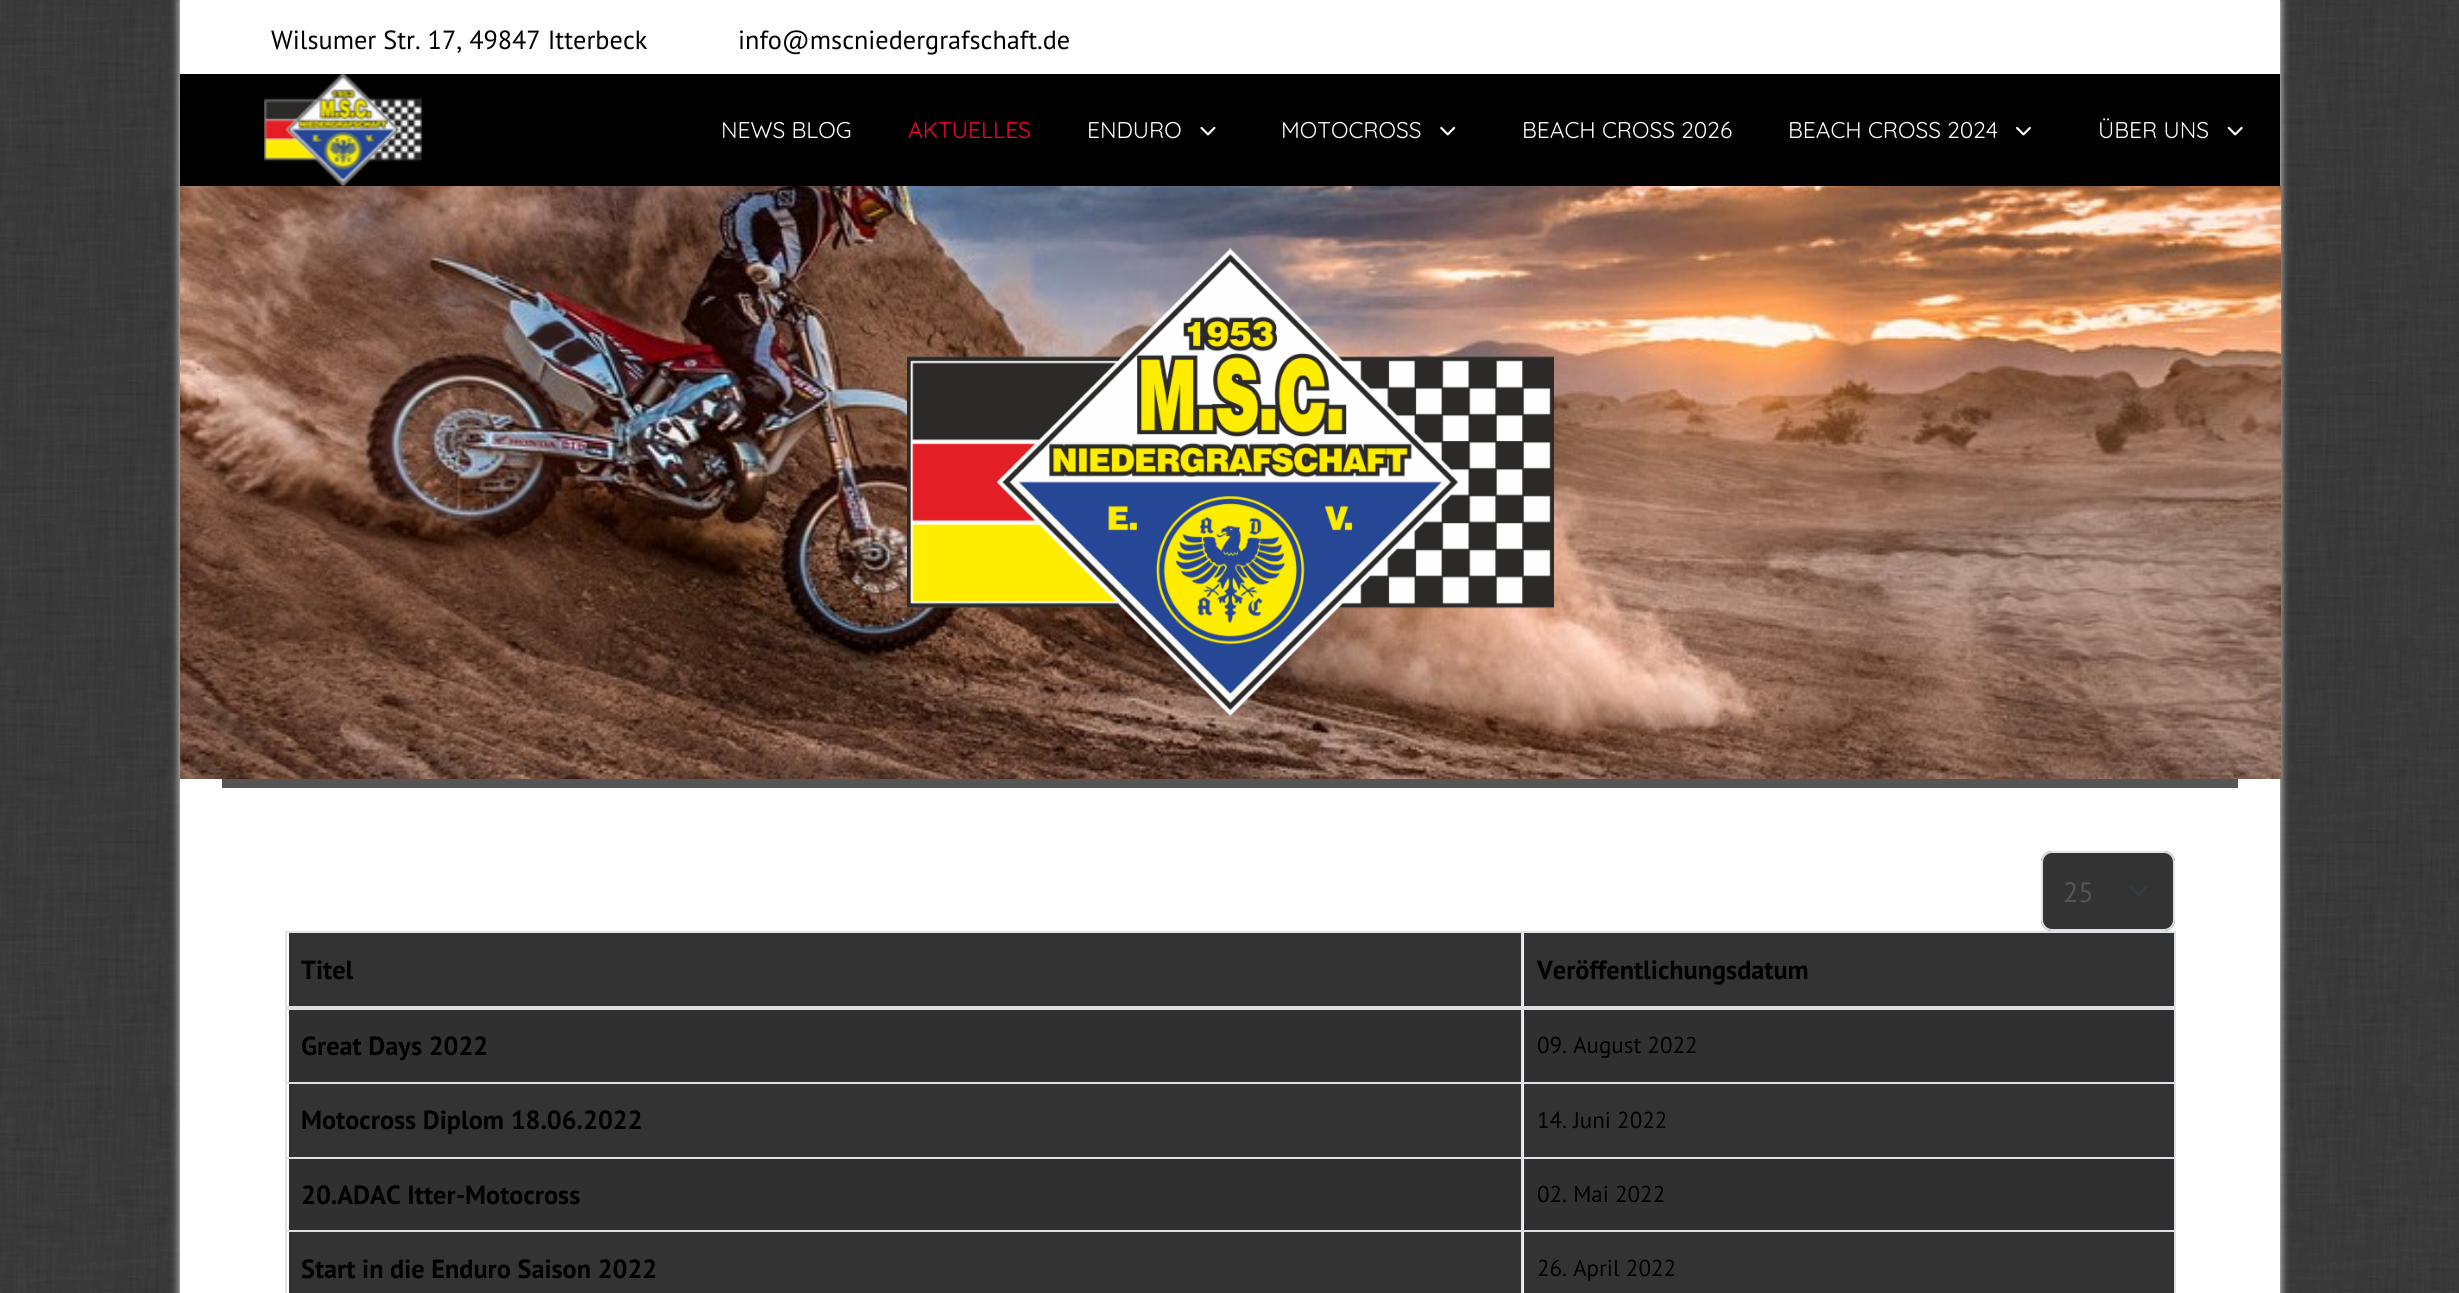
#include <cairo.h>
#include <math.h>
#include <stddef.h>

static cairo_t *ctx;

static void use_color(int r, int g, int b) {
    cairo_set_source_rgb(ctx, r / 255.0, g / 255.0, b / 255.0);
}

static void round_rect(double x, double y, double w, double h, double r) {
    cairo_new_sub_path(ctx);
    cairo_arc(ctx, x + w - r, y + h - r, r, 0, M_PI / 2);
    cairo_arc(ctx, x + r, y + h - r, r, M_PI / 2, M_PI);
    cairo_arc(ctx, x + r, y + r, r, M_PI, 1.5 * M_PI);
    cairo_arc(ctx, x + w - r, y + r, r, 1.5 * M_PI, 2 * M_PI);
    cairo_close_path(ctx);
}

static void shadow(double x, double y, double w, double h, double r, double blur, double alpha) {
    cairo_push_group_with_content(ctx, CAIRO_CONTENT_ALPHA);
    cairo_set_operator(ctx, CAIRO_OPERATOR_SOURCE);
    for (int i = 15; i >= -15 && fmin(w, h) + blur * i / 3 > 0; i -= 2) {
        double e = blur * i / 6;
        cairo_set_source_rgba(ctx, 0, 0, 0, alpha * erfc((i - 1) / 8.5) / 2);
        round_rect(x - e, y - e, w + 2 * e, h + 2 * e, fmax(0, fmin(r + e + blur * .6, fmin(w, h) / 2 + e)));
        cairo_fill(ctx);
    }
    cairo_pattern_t *soft = cairo_pop_group(ctx);
    cairo_mask(ctx, soft);
    cairo_pattern_destroy(soft);
}

static void picture(const char *path, double x, double y, double w, double h) {
    cairo_surface_t *image = cairo_image_surface_create_from_png(path);
    cairo_save(ctx);
    cairo_set_source_surface(ctx, image, x, y);
    cairo_rectangle(ctx, x, y, w, h);
    cairo_fill(ctx);
    cairo_restore(ctx);
    cairo_surface_destroy(image);
}

int main(void) {
    cairo_surface_t *surface = cairo_image_surface_create(CAIRO_FORMAT_RGB24, 2459, 1293);
    ctx = cairo_create(surface);
    cairo_font_options_t *options = cairo_font_options_create();
    cairo_font_options_set_hint_metrics(options, CAIRO_HINT_METRICS_OFF);
    cairo_font_options_set_hint_style(options, CAIRO_HINT_STYLE_NONE);
    cairo_set_font_options(ctx, options);
    cairo_set_miter_limit(ctx, 4);
    use_color(255, 255, 255);
    cairo_paint(ctx);
    picture("img1.png", 0, 0, 2459, 1293);
    use_color(248, 248, 248);
    shadow(180, 0, 2100, 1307, 0, 4.5, 1);
    use_color(255, 255, 255);
    cairo_rectangle(ctx, 180, 0, 2100, 74);
    cairo_fill(ctx);
    cairo_select_font_face(ctx, "PT Sans", CAIRO_FONT_SLANT_NORMAL, CAIRO_FONT_WEIGHT_NORMAL);
    cairo_set_font_size(ctx, 26.25);
    use_color(0, 0, 0);
    cairo_move_to(ctx, 271, 49);
    cairo_show_text(ctx, "Wilsumer Str. 17, 49847 Itterbeck");
    cairo_move_to(ctx, 738, 49);
    cairo_show_text(ctx, "info@mscniedergrafschaft.de");
    picture("img7.png", 180, 185, 2101, 594);
    cairo_rectangle(ctx, 180, 74, 2100, 112);
    cairo_fill(ctx);
    picture("img2.png", 264, 74, 159, 113);
    cairo_select_font_face(ctx, "Quicksand", CAIRO_FONT_SLANT_NORMAL, CAIRO_FONT_WEIGHT_NORMAL);
    cairo_set_font_size(ctx, 22.75);
    use_color(255, 255, 255);
    cairo_move_to(ctx, 721, 138);
    cairo_show_text(ctx, "NEWS BLOG");
    use_color(242, 7, 44);
    cairo_move_to(ctx, 908, 138);
    cairo_show_text(ctx, "AKTUELLES");
    use_color(255, 255, 255);
    cairo_move_to(ctx, 1087, 138);
    cairo_show_text(ctx, "ENDURO");
    picture("img3.png", 1200, 126, 16, 10);
    cairo_move_to(ctx, 1281, 138);
    cairo_show_text(ctx, "MOTOCROSS");
    picture("img4.png", 1440, 126, 16, 10);
    cairo_move_to(ctx, 1522, 138);
    cairo_show_text(ctx, "BEACH CROSS 2026");
    cairo_move_to(ctx, 1788, 138);
    cairo_show_text(ctx, "BEACH CROSS 2024");
    picture("img5.png", 2016, 126, 15, 10);
    cairo_move_to(ctx, 2098, 138);
    cairo_show_text(ctx, "ÜBER UNS");
    picture("img6.png", 2227, 126, 16, 10);
    picture("img8.png", 907, 248, 647, 468);
    cairo_rectangle(ctx, 180, 779, 2100, 514);
    cairo_fill(ctx);
    use_color(85, 85, 85);
    cairo_rectangle(ctx, 222, 779, 2016, 9);
    cairo_fill(ctx);
    use_color(51, 51, 51);
    round_rect(2041, 851, 134, 80, 11);
    cairo_fill(ctx);
    cairo_new_path(ctx);
    cairo_move_to(ctx, 2130.5, 887);
    cairo_line_to(ctx, 2138.5, 894.5);
    cairo_line_to(ctx, 2146.5, 887);
    use_color(52, 58, 64);
    cairo_set_line_width(ctx, 2.6);
    cairo_set_line_cap(ctx, CAIRO_LINE_CAP_ROUND);
    cairo_set_line_join(ctx, CAIRO_LINE_JOIN_ROUND);
    cairo_stroke(ctx);
    round_rect(2042, 852, 132, 78, 10);
    use_color(222, 226, 230);
    cairo_set_line_width(ctx, 2);
    cairo_set_line_cap(ctx, CAIRO_LINE_CAP_BUTT);
    cairo_set_line_join(ctx, CAIRO_LINE_JOIN_MITER);
    cairo_stroke(ctx);
    cairo_select_font_face(ctx, "PT Sans", CAIRO_FONT_SLANT_NORMAL, CAIRO_FONT_WEIGHT_NORMAL);
    cairo_set_font_size(ctx, 28);
    use_color(85, 85, 85);
    cairo_move_to(ctx, 2063, 902);
    cairo_show_text(ctx, "25");
    use_color(222, 226, 230);
    cairo_rectangle(ctx, 285, 931, 1890, 2);
    cairo_fill(ctx);
    use_color(51, 51, 51);
    cairo_rectangle(ctx, 289, 933, 1232, 73);
    cairo_fill(ctx);
    cairo_select_font_face(ctx, "PT Sans", CAIRO_FONT_SLANT_NORMAL, CAIRO_FONT_WEIGHT_BOLD);
    cairo_set_font_size(ctx, 26.25);
    use_color(0, 0, 0);
    cairo_move_to(ctx, 301, 979);
    cairo_show_text(ctx, "Titel");
    use_color(51, 51, 51);
    cairo_rectangle(ctx, 1524, 933, 650, 73);
    cairo_fill(ctx);
    use_color(0, 0, 0);
    cairo_move_to(ctx, 1537, 979);
    cairo_show_text(ctx, "Veröffentlichungsdatum");
    use_color(222, 226, 230);
    cairo_rectangle(ctx, 285, 1006, 1890, 4);
    cairo_fill(ctx);
    use_color(48, 48, 48);
    cairo_rectangle(ctx, 289, 1010, 1232, 72);
    cairo_fill(ctx);
    use_color(0, 0, 0);
    cairo_move_to(ctx, 301, 1055);
    cairo_show_text(ctx, "Great Days 2022");
    use_color(48, 48, 48);
    cairo_rectangle(ctx, 1524, 1010, 650, 72);
    cairo_fill(ctx);
    cairo_select_font_face(ctx, "PT Sans", CAIRO_FONT_SLANT_NORMAL, CAIRO_FONT_WEIGHT_NORMAL);
    cairo_set_font_size(ctx, 23);
    use_color(0, 0, 0);
    cairo_move_to(ctx, 1537, 1053);
    cairo_show_text(ctx, "09. August 2022");
    use_color(222, 226, 230);
    cairo_rectangle(ctx, 285, 1082, 1890, 2);
    cairo_fill(ctx);
    use_color(51, 51, 51);
    cairo_rectangle(ctx, 289, 1084, 1232, 73);
    cairo_fill(ctx);
    cairo_select_font_face(ctx, "PT Sans", CAIRO_FONT_SLANT_NORMAL, CAIRO_FONT_WEIGHT_BOLD);
    cairo_set_font_size(ctx, 26.25);
    use_color(0, 0, 0);
    cairo_move_to(ctx, 301, 1129);
    cairo_show_text(ctx, "Motocross Diplom 18.06.2022");
    use_color(51, 51, 51);
    cairo_rectangle(ctx, 1524, 1084, 650, 73);
    cairo_fill(ctx);
    cairo_select_font_face(ctx, "PT Sans", CAIRO_FONT_SLANT_NORMAL, CAIRO_FONT_WEIGHT_NORMAL);
    cairo_set_font_size(ctx, 23);
    use_color(0, 0, 0);
    cairo_move_to(ctx, 1537, 1128);
    cairo_show_text(ctx, "14. Juni 2022");
    use_color(222, 226, 230);
    cairo_rectangle(ctx, 285, 1157, 1890, 2);
    cairo_fill(ctx);
    use_color(48, 48, 48);
    cairo_rectangle(ctx, 289, 1159, 1232, 71);
    cairo_fill(ctx);
    cairo_select_font_face(ctx, "PT Sans", CAIRO_FONT_SLANT_NORMAL, CAIRO_FONT_WEIGHT_BOLD);
    cairo_set_font_size(ctx, 26.25);
    use_color(0, 0, 0);
    cairo_move_to(ctx, 301, 1204);
    cairo_show_text(ctx, "20.ADAC Itter-Motocross");
    use_color(48, 48, 48);
    cairo_rectangle(ctx, 1524, 1159, 650, 71);
    cairo_fill(ctx);
    cairo_select_font_face(ctx, "PT Sans", CAIRO_FONT_SLANT_NORMAL, CAIRO_FONT_WEIGHT_NORMAL);
    cairo_set_font_size(ctx, 23);
    use_color(0, 0, 0);
    cairo_move_to(ctx, 1537, 1202);
    cairo_show_text(ctx, "02. Mai 2022");
    use_color(222, 226, 230);
    cairo_rectangle(ctx, 285, 1230, 1890, 2);
    cairo_fill(ctx);
    use_color(51, 51, 51);
    cairo_rectangle(ctx, 289, 1232, 1232, 61);
    cairo_fill(ctx);
    use_color(222, 226, 230);
    cairo_rectangle(ctx, 285, 931, 2, 362);
    cairo_fill(ctx);
    cairo_select_font_face(ctx, "PT Sans", CAIRO_FONT_SLANT_NORMAL, CAIRO_FONT_WEIGHT_BOLD);
    cairo_set_font_size(ctx, 26.25);
    use_color(0, 0, 0);
    cairo_move_to(ctx, 301, 1278);
    cairo_show_text(ctx, "Start in die Enduro Saison 2022");
    use_color(51, 51, 51);
    cairo_rectangle(ctx, 1524, 1232, 650, 61);
    cairo_fill(ctx);
    use_color(222, 226, 230);
    cairo_rectangle(ctx, 2174, 931, 2, 362);
    cairo_fill(ctx);
    cairo_rectangle(ctx, 1521, 931, 2, 362);
    cairo_fill(ctx);
    cairo_select_font_face(ctx, "PT Sans", CAIRO_FONT_SLANT_NORMAL, CAIRO_FONT_WEIGHT_NORMAL);
    cairo_set_font_size(ctx, 23);
    use_color(0, 0, 0);
    cairo_move_to(ctx, 1537, 1276);
    cairo_show_text(ctx, "26. April 2022");
    cairo_surface_write_to_png(surface, "result.png");
    cairo_font_options_destroy(options);
    cairo_destroy(ctx);
    cairo_surface_destroy(surface);
    return 0;
}
